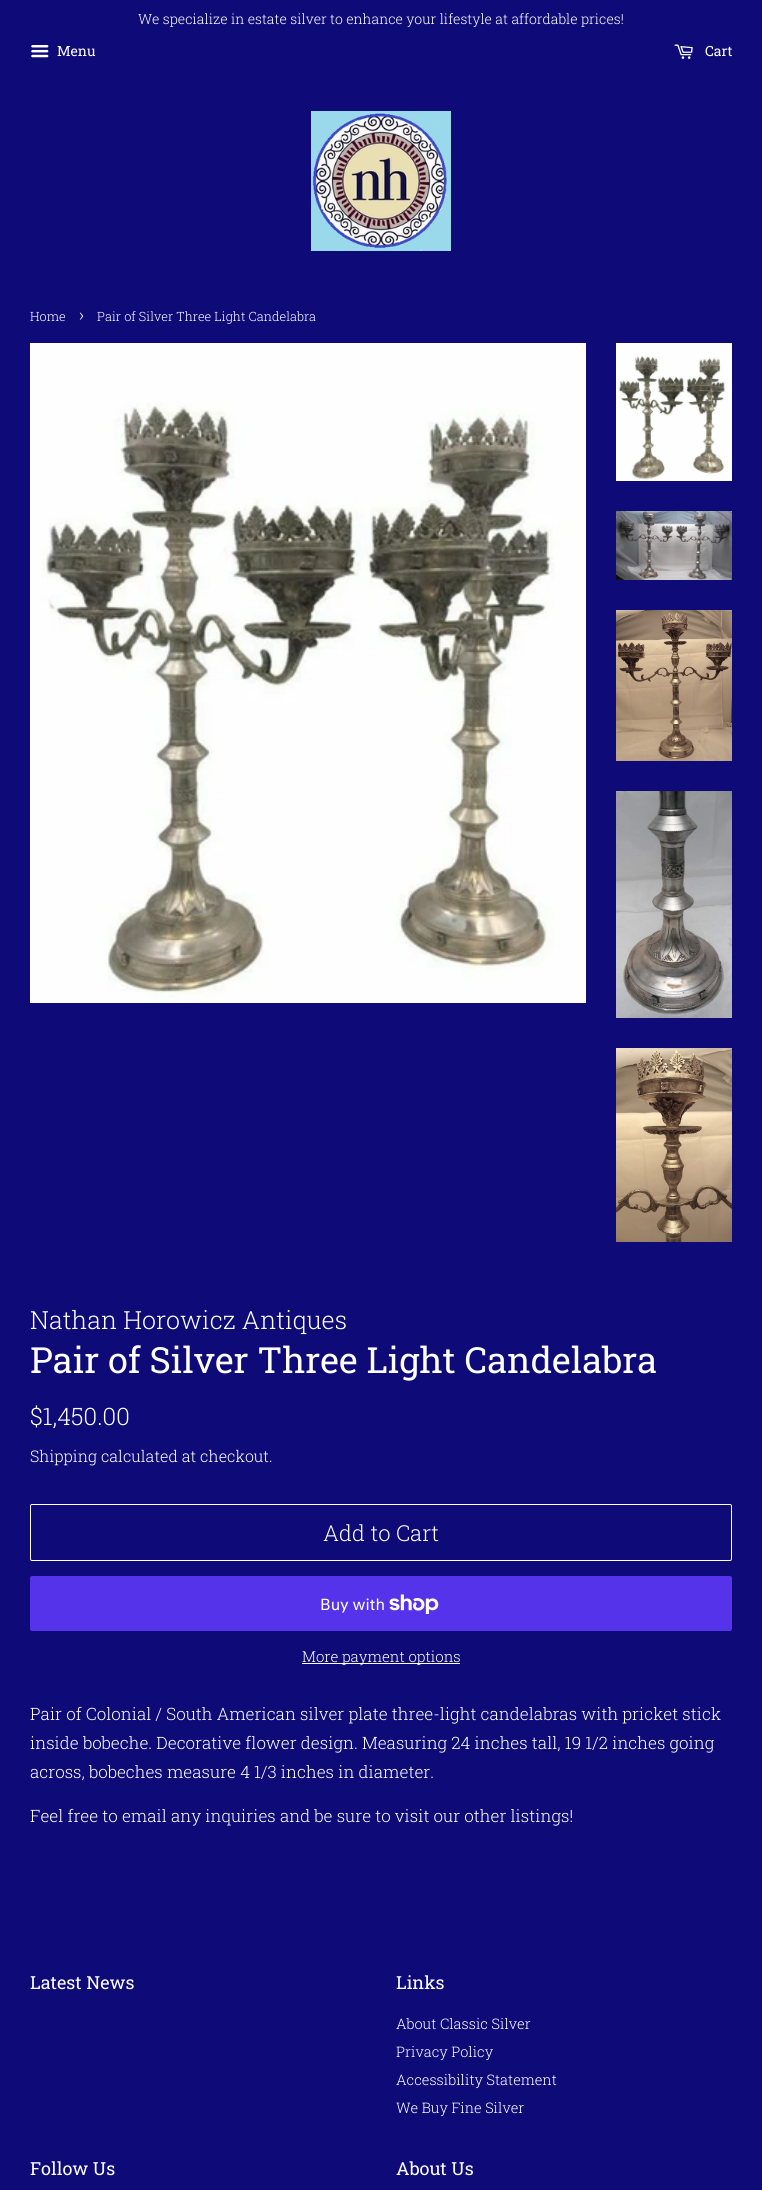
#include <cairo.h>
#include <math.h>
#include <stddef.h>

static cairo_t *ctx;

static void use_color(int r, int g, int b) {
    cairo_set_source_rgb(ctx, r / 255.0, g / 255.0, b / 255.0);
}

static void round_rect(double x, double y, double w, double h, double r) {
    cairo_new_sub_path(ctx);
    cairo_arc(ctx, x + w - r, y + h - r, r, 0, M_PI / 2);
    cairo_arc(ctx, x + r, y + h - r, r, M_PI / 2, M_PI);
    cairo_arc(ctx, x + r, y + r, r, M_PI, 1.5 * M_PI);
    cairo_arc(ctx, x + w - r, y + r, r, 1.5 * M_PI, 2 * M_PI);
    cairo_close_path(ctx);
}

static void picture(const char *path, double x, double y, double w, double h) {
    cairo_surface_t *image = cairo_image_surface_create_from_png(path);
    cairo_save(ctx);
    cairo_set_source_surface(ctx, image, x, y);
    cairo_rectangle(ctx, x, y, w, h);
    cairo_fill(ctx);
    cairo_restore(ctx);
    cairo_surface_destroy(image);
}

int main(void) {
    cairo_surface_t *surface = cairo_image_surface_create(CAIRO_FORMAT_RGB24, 762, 2190);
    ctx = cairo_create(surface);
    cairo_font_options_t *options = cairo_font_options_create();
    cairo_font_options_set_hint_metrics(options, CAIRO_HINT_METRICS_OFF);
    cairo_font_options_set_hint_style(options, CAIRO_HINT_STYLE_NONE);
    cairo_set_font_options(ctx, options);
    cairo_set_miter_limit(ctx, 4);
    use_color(14, 11, 121);
    cairo_paint(ctx);
    cairo_select_font_face(ctx, "Roboto Slab Light", CAIRO_FONT_SLANT_NORMAL, CAIRO_FONT_WEIGHT_NORMAL);
    cairo_set_font_size(ctx, 14);
    use_color(255, 255, 255);
    cairo_move_to(ctx, 138, 24);
    cairo_show_text(ctx, "We specialize in estate silver to enhance your lifestyle at affordable prices!");
    picture("img1.png", 31, 45, 18, 13);
    cairo_select_font_face(ctx, "Roboto Slab", CAIRO_FONT_SLANT_NORMAL, CAIRO_FONT_WEIGHT_NORMAL);
    cairo_move_to(ctx, 57, 56);
    cairo_show_text(ctx, "Menu");
    picture("img2.png", 674, 44, 19, 15);
    cairo_move_to(ctx, 705, 56);
    cairo_show_text(ctx, "Cart");
    picture("img3.png", 311, 111, 140, 140);
    cairo_select_font_face(ctx, "Roboto Slab Light", CAIRO_FONT_SLANT_NORMAL, CAIRO_FONT_WEIGHT_NORMAL);
    cairo_set_font_size(ctx, 12.75);
    cairo_move_to(ctx, 30, 321);
    cairo_show_text(ctx, "Home");
    cairo_set_font_size(ctx, 18);
    cairo_move_to(ctx, 79, 321);
    cairo_show_text(ctx, "›");
    cairo_set_font_size(ctx, 12.75);
    cairo_move_to(ctx, 97, 321);
    cairo_show_text(ctx, "Pair of Silver Three Light Candelabra");
    picture("img4.png", 30, 343, 556, 660);
    picture("img5.png", 616, 343, 116, 138);
    picture("img6.png", 616, 511, 116, 69);
    picture("img7.png", 616, 610, 116, 151);
    picture("img8.png", 616, 791, 116, 227);
    picture("img9.png", 616, 1048, 116, 194);
    cairo_set_font_size(ctx, 25);
    cairo_move_to(ctx, 30, 1329);
    cairo_show_text(ctx, "Nathan Horowicz Antiques");
    cairo_select_font_face(ctx, "Roboto Slab", CAIRO_FONT_SLANT_NORMAL, CAIRO_FONT_WEIGHT_NORMAL);
    cairo_set_font_size(ctx, 36);
    cairo_move_to(ctx, 30, 1373);
    cairo_show_text(ctx, "Pair of Silver Three Light Candelabra");
    cairo_select_font_face(ctx, "Roboto Slab Light", CAIRO_FONT_SLANT_NORMAL, CAIRO_FONT_WEIGHT_NORMAL);
    cairo_set_font_size(ctx, 24);
    cairo_move_to(ctx, 30, 1425);
    cairo_show_text(ctx, "$1,450.00");
    cairo_set_font_size(ctx, 16);
    cairo_move_to(ctx, 30, 1462);
    cairo_show_text(ctx, "Shipping calculated at checkout.");
    round_rect(30.5, 1504.5, 701, 56, 1.5);
    cairo_set_line_width(ctx, 1);
    cairo_stroke(ctx);
    cairo_set_font_size(ctx, 22);
    cairo_move_to(ctx, 323, 1541);
    cairo_show_text(ctx, "Add to Cart");
    use_color(84, 51, 235);
    round_rect(30, 1576, 702, 55, 2);
    cairo_fill(ctx);
    cairo_select_font_face(ctx, "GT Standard", CAIRO_FONT_SLANT_NORMAL, CAIRO_FONT_WEIGHT_NORMAL);
    cairo_set_font_size(ctx, 16);
    use_color(255, 255, 255);
    cairo_move_to(ctx, 320, 1610);
    cairo_show_text(ctx, "Buy with");
    picture("img10.png", 389, 1594, 50, 20);
    cairo_rectangle(ctx, 302, 1663, 158, 1);
    cairo_fill(ctx);
    cairo_select_font_face(ctx, "Roboto Slab Light", CAIRO_FONT_SLANT_NORMAL, CAIRO_FONT_WEIGHT_NORMAL);
    cairo_set_font_size(ctx, 15);
    cairo_move_to(ctx, 302, 1662);
    cairo_show_text(ctx, "More payment options");
    cairo_set_font_size(ctx, 17);
    cairo_move_to(ctx, 30, 1720);
    cairo_show_text(ctx, "Pair of Colonial / South American silver plate three-light candelabras with pricket stick");
    cairo_move_to(ctx, 30, 1749);
    cairo_show_text(ctx, "inside bobeche. Decorative flower design. Measuring 24 inches tall, 19 1/2 inches going");
    cairo_move_to(ctx, 30, 1778);
    cairo_show_text(ctx, "across, bobeches measure 4 1/3 inches in diameter.");
    cairo_move_to(ctx, 30, 1822);
    cairo_show_text(ctx, "Feel free to email any inquiries and be sure to visit our other listings!");
    cairo_select_font_face(ctx, "Roboto Slab", CAIRO_FONT_SLANT_NORMAL, CAIRO_FONT_WEIGHT_NORMAL);
    cairo_set_font_size(ctx, 18);
    cairo_move_to(ctx, 30, 1989);
    cairo_show_text(ctx, "Latest News");
    cairo_move_to(ctx, 396, 1989);
    cairo_show_text(ctx, "Links");
    cairo_select_font_face(ctx, "Roboto Slab Light", CAIRO_FONT_SLANT_NORMAL, CAIRO_FONT_WEIGHT_NORMAL);
    cairo_set_font_size(ctx, 14.5);
    cairo_move_to(ctx, 396, 2029);
    cairo_show_text(ctx, "About Classic Silver");
    cairo_move_to(ctx, 396, 2057);
    cairo_show_text(ctx, "Privacy Policy");
    cairo_move_to(ctx, 396, 2085);
    cairo_show_text(ctx, "Accessibility Statement");
    cairo_move_to(ctx, 396, 2113);
    cairo_show_text(ctx, "We Buy Fine Silver");
    cairo_select_font_face(ctx, "Roboto Slab", CAIRO_FONT_SLANT_NORMAL, CAIRO_FONT_WEIGHT_NORMAL);
    cairo_set_font_size(ctx, 18);
    cairo_move_to(ctx, 30, 2175);
    cairo_show_text(ctx, "Follow Us");
    cairo_move_to(ctx, 396, 2175);
    cairo_show_text(ctx, "About Us");
    cairo_surface_write_to_png(surface, "result.png");
    cairo_font_options_destroy(options);
    cairo_destroy(ctx);
    cairo_surface_destroy(surface);
    return 0;
}
